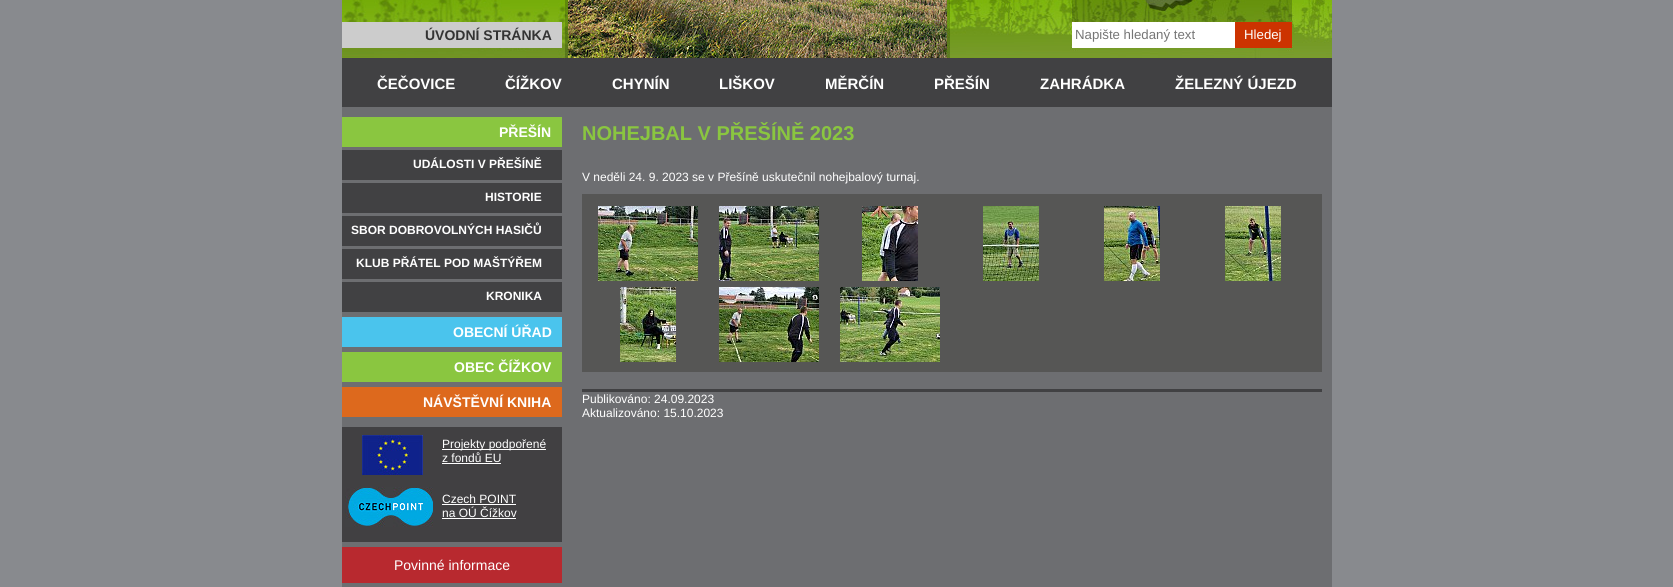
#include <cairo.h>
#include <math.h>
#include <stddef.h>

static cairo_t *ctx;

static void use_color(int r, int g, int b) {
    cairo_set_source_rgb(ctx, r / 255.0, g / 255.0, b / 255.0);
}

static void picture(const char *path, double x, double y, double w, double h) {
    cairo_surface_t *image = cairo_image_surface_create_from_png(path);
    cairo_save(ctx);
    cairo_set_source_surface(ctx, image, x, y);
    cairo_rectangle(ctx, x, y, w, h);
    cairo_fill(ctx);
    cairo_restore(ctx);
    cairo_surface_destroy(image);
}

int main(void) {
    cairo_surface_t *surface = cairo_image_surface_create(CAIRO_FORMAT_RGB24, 1673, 587);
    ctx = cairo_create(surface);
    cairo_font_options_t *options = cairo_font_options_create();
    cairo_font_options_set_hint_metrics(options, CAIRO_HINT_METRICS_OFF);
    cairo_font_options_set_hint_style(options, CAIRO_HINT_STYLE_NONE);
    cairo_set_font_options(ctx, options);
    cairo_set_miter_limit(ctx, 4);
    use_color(136, 138, 142);
    cairo_paint(ctx);
    use_color(109, 110, 113);
    cairo_rectangle(ctx, 342, 107, 990, 480);
    cairo_fill(ctx);
    picture("img1.png", 342, 0, 990, 107);
    use_color(204, 204, 204);
    cairo_rectangle(ctx, 342, 22, 220, 26);
    cairo_fill(ctx);
    cairo_select_font_face(ctx, "Liberation Sans", CAIRO_FONT_SLANT_NORMAL, CAIRO_FONT_WEIGHT_BOLD);
    cairo_set_font_size(ctx, 14);
    use_color(51, 51, 51);
    cairo_move_to(ctx, 425, 40);
    cairo_show_text(ctx, "ÚVODNÍ STRÁNKA");
    use_color(255, 255, 255);
    cairo_rectangle(ctx, 1072, 22, 163, 26);
    cairo_fill(ctx);
    cairo_select_font_face(ctx, "Liberation Sans", CAIRO_FONT_SLANT_NORMAL, CAIRO_FONT_WEIGHT_NORMAL);
    cairo_set_font_size(ctx, 13.25);
    use_color(117, 117, 117);
    cairo_move_to(ctx, 1075, 39);
    cairo_show_text(ctx, "Napište hledaný text");
    use_color(204, 51, 0);
    cairo_rectangle(ctx, 1235, 22, 57, 26);
    cairo_fill(ctx);
    use_color(255, 255, 255);
    cairo_move_to(ctx, 1244, 39);
    cairo_show_text(ctx, "Hledej");
    cairo_select_font_face(ctx, "Liberation Sans", CAIRO_FONT_SLANT_NORMAL, CAIRO_FONT_WEIGHT_BOLD);
    cairo_set_font_size(ctx, 15);
    cairo_move_to(ctx, 377, 89);
    cairo_show_text(ctx, "ČEČOVICE");
    cairo_move_to(ctx, 505, 89);
    cairo_show_text(ctx, "ČÍŽKOV");
    cairo_move_to(ctx, 612, 89);
    cairo_show_text(ctx, "CHYNÍN");
    cairo_move_to(ctx, 719, 89);
    cairo_show_text(ctx, "LIŠKOV");
    cairo_move_to(ctx, 825, 89);
    cairo_show_text(ctx, "MĚRČÍN");
    cairo_move_to(ctx, 934, 89);
    cairo_show_text(ctx, "PŘEŠÍN");
    cairo_move_to(ctx, 1040, 89);
    cairo_show_text(ctx, "ZAHRÁDKA");
    cairo_move_to(ctx, 1175, 89);
    cairo_show_text(ctx, "ŽELEZNÝ ÚJEZD");
    use_color(138, 198, 64);
    cairo_rectangle(ctx, 342, 117, 220, 30);
    cairo_fill(ctx);
    cairo_set_font_size(ctx, 14);
    use_color(255, 255, 255);
    cairo_move_to(ctx, 499, 137);
    cairo_show_text(ctx, "PŘEŠÍN");
    use_color(65, 65, 67);
    cairo_rectangle(ctx, 342, 150, 220, 30);
    cairo_fill(ctx);
    cairo_set_font_size(ctx, 12);
    use_color(255, 255, 255);
    cairo_move_to(ctx, 413, 168);
    cairo_show_text(ctx, "UDÁLOSTI V PŘEŠÍNĚ");
    use_color(65, 65, 67);
    cairo_rectangle(ctx, 342, 183, 220, 30);
    cairo_fill(ctx);
    use_color(255, 255, 255);
    cairo_move_to(ctx, 485, 201);
    cairo_show_text(ctx, "HISTORIE");
    use_color(65, 65, 67);
    cairo_rectangle(ctx, 342, 216, 220, 30);
    cairo_fill(ctx);
    use_color(255, 255, 255);
    cairo_move_to(ctx, 351, 234);
    cairo_show_text(ctx, "SBOR DOBROVOLNÝCH HASIČŮ");
    use_color(65, 65, 67);
    cairo_rectangle(ctx, 342, 249, 220, 30);
    cairo_fill(ctx);
    use_color(255, 255, 255);
    cairo_move_to(ctx, 356, 267);
    cairo_show_text(ctx, "KLUB PŘÁTEL POD MAŠTÝŘEM");
    use_color(65, 65, 67);
    cairo_rectangle(ctx, 342, 282, 220, 30);
    cairo_fill(ctx);
    use_color(255, 255, 255);
    cairo_move_to(ctx, 486, 300);
    cairo_show_text(ctx, "KRONIKA");
    use_color(74, 196, 237);
    cairo_rectangle(ctx, 342, 317, 220, 30);
    cairo_fill(ctx);
    cairo_set_font_size(ctx, 14);
    use_color(255, 255, 255);
    cairo_move_to(ctx, 453, 337);
    cairo_show_text(ctx, "OBECNÍ ÚŘAD");
    use_color(138, 198, 64);
    cairo_rectangle(ctx, 342, 352, 220, 30);
    cairo_fill(ctx);
    use_color(255, 255, 255);
    cairo_move_to(ctx, 454, 372);
    cairo_show_text(ctx, "OBEC ČÍŽKOV");
    use_color(221, 105, 29);
    cairo_rectangle(ctx, 342, 387, 220, 30);
    cairo_fill(ctx);
    use_color(255, 255, 255);
    cairo_move_to(ctx, 423, 407);
    cairo_show_text(ctx, "NÁVŠTĚVNÍ KNIHA");
    use_color(65, 64, 66);
    cairo_rectangle(ctx, 342, 427, 220, 115);
    cairo_fill(ctx);
    picture("img2.png", 362, 435, 61, 40);
    use_color(255, 255, 255);
    cairo_rectangle(ctx, 442, 449, 104, 1);
    cairo_fill(ctx);
    cairo_select_font_face(ctx, "Liberation Sans", CAIRO_FONT_SLANT_NORMAL, CAIRO_FONT_WEIGHT_NORMAL);
    cairo_set_font_size(ctx, 12);
    cairo_move_to(ctx, 442, 448);
    cairo_show_text(ctx, "Projekty podpořené");
    cairo_move_to(ctx, 442, 462);
    cairo_show_text(ctx, "z fondů EU");
    cairo_rectangle(ctx, 442, 463, 59, 1);
    cairo_fill(ctx);
    picture("img3.png", 345, 487, 88, 40);
    cairo_move_to(ctx, 442, 503);
    cairo_show_text(ctx, "Czech POINT");
    cairo_rectangle(ctx, 442, 504, 74, 1);
    cairo_fill(ctx);
    cairo_move_to(ctx, 442, 517);
    cairo_show_text(ctx, "na OÚ Čížkov");
    cairo_rectangle(ctx, 442, 518, 74, 1);
    cairo_fill(ctx);
    use_color(184, 41, 47);
    cairo_rectangle(ctx, 342, 547, 220, 36);
    cairo_fill(ctx);
    cairo_set_font_size(ctx, 14);
    use_color(255, 255, 255);
    cairo_move_to(ctx, 394, 570);
    cairo_show_text(ctx, "Povinné informace");
    cairo_select_font_face(ctx, "Liberation Sans", CAIRO_FONT_SLANT_NORMAL, CAIRO_FONT_WEIGHT_BOLD);
    cairo_set_font_size(ctx, 20);
    use_color(138, 198, 64);
    cairo_move_to(ctx, 582, 140);
    cairo_show_text(ctx, "NOHEJBAL V PŘEŠÍNĚ 2023");
    cairo_select_font_face(ctx, "Liberation Sans", CAIRO_FONT_SLANT_NORMAL, CAIRO_FONT_WEIGHT_NORMAL);
    cairo_set_font_size(ctx, 12);
    use_color(255, 255, 255);
    cairo_move_to(ctx, 582, 181);
    cairo_show_text(ctx, "V neděli 24. 9. 2023 se v Přešíně uskutečnil nohejbalový turnaj.");
    use_color(86, 86, 85);
    cairo_rectangle(ctx, 582, 194, 740, 178);
    cairo_fill(ctx);
    picture("img4.png", 598, 206, 100, 75);
    picture("img5.png", 719, 206, 100, 75);
    picture("img6.png", 862, 206, 56, 75);
    picture("img7.png", 983, 206, 56, 75);
    picture("img8.png", 1104, 206, 56, 75);
    picture("img9.png", 1225, 206, 56, 75);
    picture("img10.png", 620, 287, 56, 75);
    picture("img11.png", 719, 287, 100, 75);
    picture("img12.png", 840, 287, 100, 75);
    use_color(65, 65, 67);
    cairo_rectangle(ctx, 582, 389, 740, 3);
    cairo_fill(ctx);
    use_color(255, 255, 255);
    cairo_move_to(ctx, 582, 403);
    cairo_show_text(ctx, "Publikováno: 24.09.2023");
    cairo_move_to(ctx, 582, 417);
    cairo_show_text(ctx, "Aktualizováno: 15.10.2023");
    cairo_surface_write_to_png(surface, "result.png");
    cairo_font_options_destroy(options);
    cairo_destroy(ctx);
    cairo_surface_destroy(surface);
    return 0;
}
